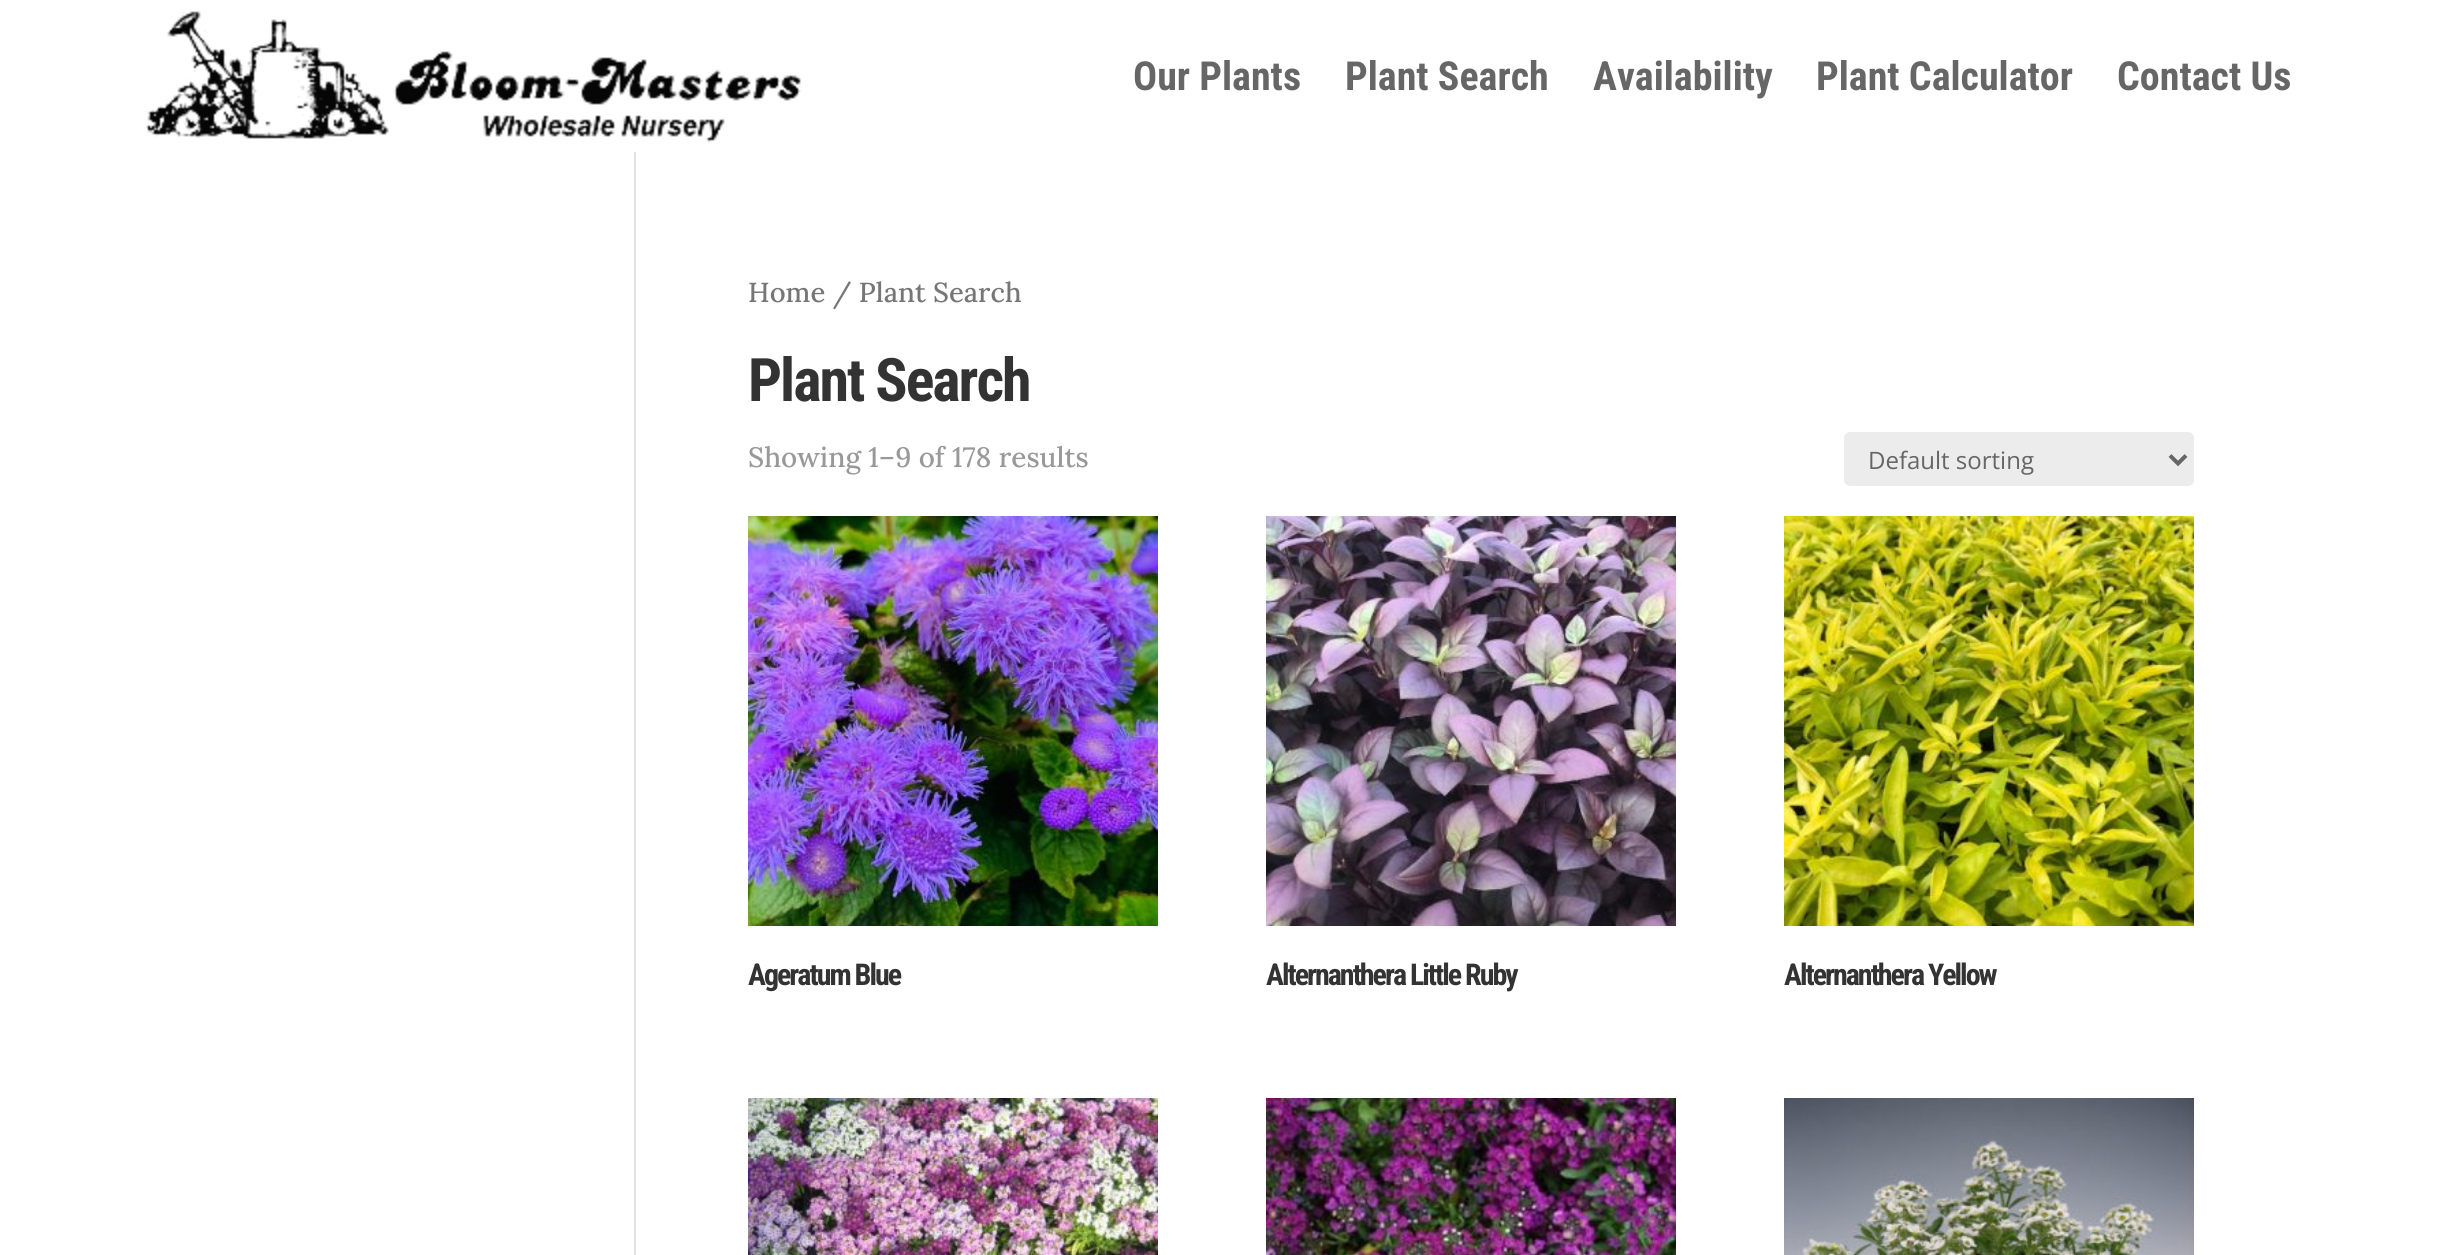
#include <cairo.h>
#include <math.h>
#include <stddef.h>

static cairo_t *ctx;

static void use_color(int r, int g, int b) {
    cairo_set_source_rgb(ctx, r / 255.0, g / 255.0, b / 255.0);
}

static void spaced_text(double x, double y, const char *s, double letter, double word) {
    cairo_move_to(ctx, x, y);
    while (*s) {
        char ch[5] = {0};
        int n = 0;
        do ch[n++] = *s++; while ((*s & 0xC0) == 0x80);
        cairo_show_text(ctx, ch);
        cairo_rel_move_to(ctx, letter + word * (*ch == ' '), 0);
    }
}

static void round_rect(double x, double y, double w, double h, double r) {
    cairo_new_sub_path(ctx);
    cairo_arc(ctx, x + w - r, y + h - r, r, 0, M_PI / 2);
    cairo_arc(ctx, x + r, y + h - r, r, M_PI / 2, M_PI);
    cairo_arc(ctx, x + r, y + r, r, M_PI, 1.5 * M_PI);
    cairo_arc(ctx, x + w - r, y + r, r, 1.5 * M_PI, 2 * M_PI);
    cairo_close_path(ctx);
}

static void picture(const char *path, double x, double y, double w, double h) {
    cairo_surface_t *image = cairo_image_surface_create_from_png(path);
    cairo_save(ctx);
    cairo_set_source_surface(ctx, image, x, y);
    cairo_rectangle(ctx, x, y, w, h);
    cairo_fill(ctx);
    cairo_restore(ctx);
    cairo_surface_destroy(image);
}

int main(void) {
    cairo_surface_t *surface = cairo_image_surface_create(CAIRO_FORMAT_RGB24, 2438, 1255);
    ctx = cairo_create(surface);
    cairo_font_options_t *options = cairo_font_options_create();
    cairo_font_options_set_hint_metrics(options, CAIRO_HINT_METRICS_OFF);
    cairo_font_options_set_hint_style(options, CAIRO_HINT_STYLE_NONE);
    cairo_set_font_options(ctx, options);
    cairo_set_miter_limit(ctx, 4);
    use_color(255, 255, 255);
    cairo_paint(ctx);
    picture("img1.png", 146, 11, 655, 132);
    cairo_select_font_face(ctx, "Roboto Condensed", CAIRO_FONT_SLANT_NORMAL, CAIRO_FONT_WEIGHT_BOLD);
    cairo_set_font_size(ctx, 40);
    use_color(102, 102, 102);
    cairo_move_to(ctx, 1133, 90);
    cairo_show_text(ctx, "Our Plants");
    cairo_move_to(ctx, 1345, 90);
    cairo_show_text(ctx, "Plant Search");
    cairo_move_to(ctx, 1593, 90);
    cairo_show_text(ctx, "Availability");
    cairo_move_to(ctx, 1816, 90);
    cairo_show_text(ctx, "Plant Calculator");
    cairo_move_to(ctx, 2117, 90);
    cairo_show_text(ctx, "Contact Us");
    use_color(226, 226, 226);
    cairo_rectangle(ctx, 634, 152, 2, 1103);
    cairo_fill(ctx);
    cairo_select_font_face(ctx, "Lora Medium", CAIRO_FONT_SLANT_NORMAL, CAIRO_FONT_WEIGHT_NORMAL);
    cairo_set_font_size(ctx, 27.5);
    use_color(118, 118, 118);
    cairo_move_to(ctx, 748, 302);
    cairo_show_text(ctx, "Home / Plant Search");
    cairo_select_font_face(ctx, "Roboto Condensed", CAIRO_FONT_SLANT_NORMAL, CAIRO_FONT_WEIGHT_BOLD);
    cairo_set_font_size(ctx, 60);
    use_color(51, 51, 51);
    spaced_text(748, 401, "Plant Search", -2, 0);
    cairo_select_font_face(ctx, "Lora Medium", CAIRO_FONT_SLANT_NORMAL, CAIRO_FONT_WEIGHT_NORMAL);
    cairo_set_font_size(ctx, 28);
    use_color(153, 153, 153);
    cairo_move_to(ctx, 748, 467);
    cairo_show_text(ctx, "Showing 1–9 of 178 results");
    use_color(236, 236, 236);
    round_rect(1844, 432, 350, 54, 6);
    cairo_fill(ctx);
    cairo_new_path(ctx);
    cairo_move_to(ctx, 2170, 455.5);
    cairo_line_to(ctx, 2178, 463.5);
    cairo_line_to(ctx, 2186, 455.5);
    use_color(102, 102, 102);
    cairo_set_line_width(ctx, 4);
    cairo_stroke(ctx);
    cairo_select_font_face(ctx, "Open Sans", CAIRO_FONT_SLANT_NORMAL, CAIRO_FONT_WEIGHT_NORMAL);
    cairo_set_font_size(ctx, 24);
    cairo_move_to(ctx, 1868, 469);
    cairo_show_text(ctx, "Default sorting");
    picture("img2.png", 748, 516, 410, 410);
    cairo_select_font_face(ctx, "Roboto Condensed", CAIRO_FONT_SLANT_NORMAL, CAIRO_FONT_WEIGHT_BOLD);
    cairo_set_font_size(ctx, 30);
    use_color(51, 51, 51);
    spaced_text(748, 985, "Ageratum Blue", -2, 0);
    picture("img3.png", 1266, 516, 410, 410);
    spaced_text(1266, 985, "Alternanthera Little Ruby", -2, 0);
    picture("img4.png", 1784, 516, 410, 410);
    spaced_text(1784, 985, "Alternanthera Yellow", -2, 0);
    picture("img5.png", 748, 1098, 410, 157);
    picture("img6.png", 1266, 1098, 410, 157);
    picture("img7.png", 1784, 1098, 410, 157);
    cairo_surface_write_to_png(surface, "result.png");
    cairo_font_options_destroy(options);
    cairo_destroy(ctx);
    cairo_surface_destroy(surface);
    return 0;
}
